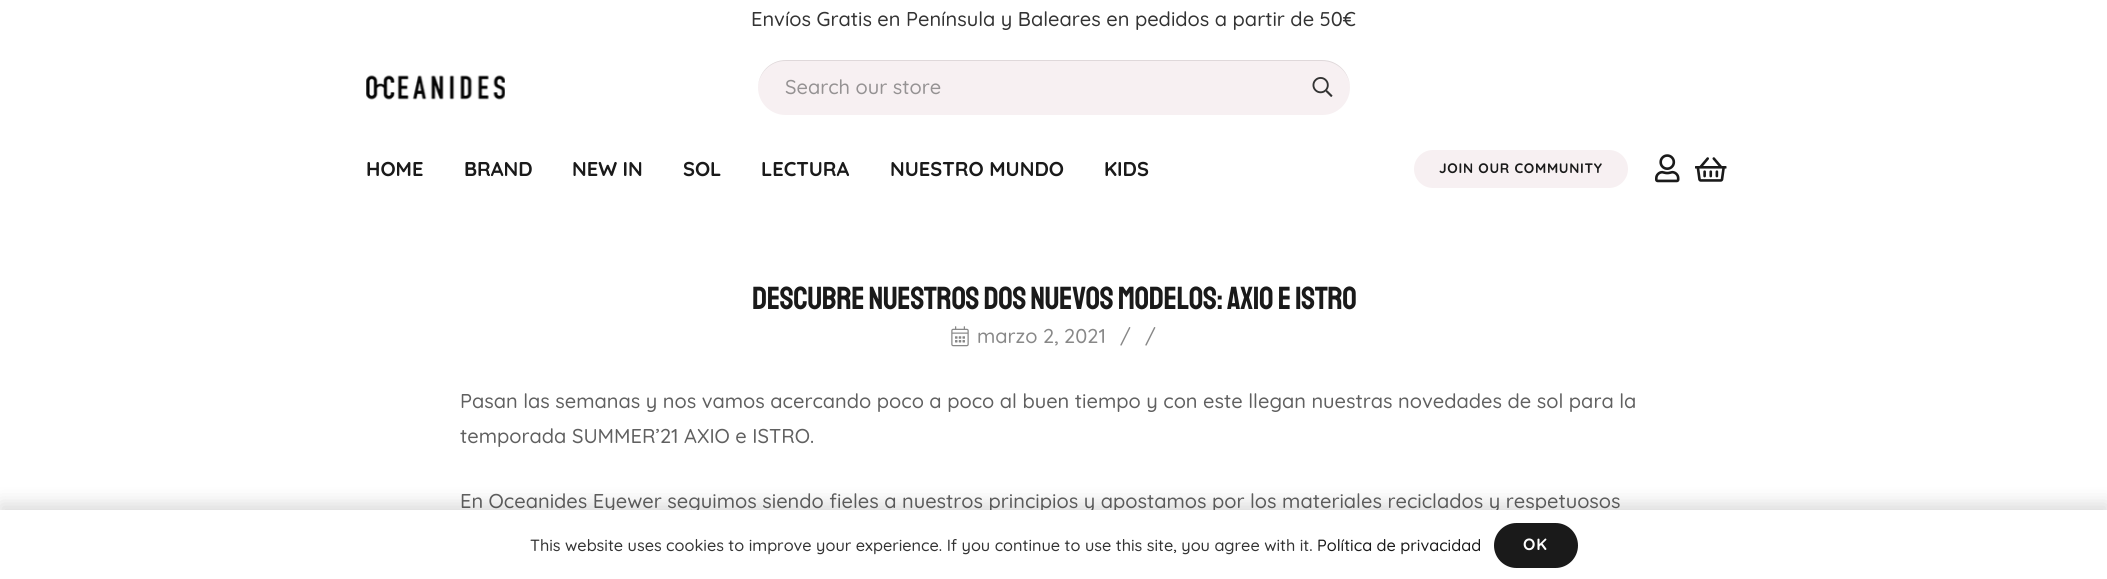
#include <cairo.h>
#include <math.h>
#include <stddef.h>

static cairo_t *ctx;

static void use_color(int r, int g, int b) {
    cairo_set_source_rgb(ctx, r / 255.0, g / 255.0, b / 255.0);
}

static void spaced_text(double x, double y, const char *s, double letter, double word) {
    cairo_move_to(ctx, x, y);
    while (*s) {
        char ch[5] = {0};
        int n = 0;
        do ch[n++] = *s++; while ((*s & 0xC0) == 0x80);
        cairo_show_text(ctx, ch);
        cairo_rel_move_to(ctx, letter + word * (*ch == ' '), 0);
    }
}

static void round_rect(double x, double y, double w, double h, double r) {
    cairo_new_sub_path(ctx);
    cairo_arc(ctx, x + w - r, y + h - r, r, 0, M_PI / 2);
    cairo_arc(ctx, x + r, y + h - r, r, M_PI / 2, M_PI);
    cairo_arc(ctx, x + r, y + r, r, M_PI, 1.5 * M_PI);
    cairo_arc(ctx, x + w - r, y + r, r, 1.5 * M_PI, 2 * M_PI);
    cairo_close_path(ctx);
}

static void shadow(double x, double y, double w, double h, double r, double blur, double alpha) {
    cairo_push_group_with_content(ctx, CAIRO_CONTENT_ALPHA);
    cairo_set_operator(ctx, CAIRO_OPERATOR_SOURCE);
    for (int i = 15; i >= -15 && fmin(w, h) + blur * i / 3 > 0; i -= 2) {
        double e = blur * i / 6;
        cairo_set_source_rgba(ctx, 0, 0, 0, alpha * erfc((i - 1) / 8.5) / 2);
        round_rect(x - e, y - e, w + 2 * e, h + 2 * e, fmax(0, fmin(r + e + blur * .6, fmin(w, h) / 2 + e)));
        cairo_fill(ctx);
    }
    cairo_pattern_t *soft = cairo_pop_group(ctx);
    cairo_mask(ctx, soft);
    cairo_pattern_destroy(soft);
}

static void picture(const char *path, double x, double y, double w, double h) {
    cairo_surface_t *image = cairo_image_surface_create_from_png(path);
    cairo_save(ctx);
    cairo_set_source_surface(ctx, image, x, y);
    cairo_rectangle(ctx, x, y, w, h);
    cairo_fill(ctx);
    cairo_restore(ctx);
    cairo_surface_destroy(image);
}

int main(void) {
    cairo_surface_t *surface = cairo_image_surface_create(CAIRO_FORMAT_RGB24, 2107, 579);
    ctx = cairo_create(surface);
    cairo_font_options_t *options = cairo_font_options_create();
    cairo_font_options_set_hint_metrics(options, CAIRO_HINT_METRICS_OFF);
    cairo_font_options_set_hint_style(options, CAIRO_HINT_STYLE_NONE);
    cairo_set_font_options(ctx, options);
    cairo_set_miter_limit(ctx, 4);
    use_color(255, 255, 255);
    cairo_paint(ctx);
    cairo_select_font_face(ctx, "Quicksand Medium", CAIRO_FONT_SLANT_NORMAL, CAIRO_FONT_WEIGHT_NORMAL);
    cairo_set_font_size(ctx, 20);
    use_color(51, 51, 51);
    cairo_move_to(ctx, 751, 26);
    cairo_show_text(ctx, "Envíos Gratis en Península y Baleares en pedidos a partir de 50€");
    picture("img1.png", 366, 75, 139, 25);
    use_color(247, 240, 242);
    round_rect(758, 60, 592, 55, 27.5);
    cairo_fill(ctx);
    cairo_set_source_rgba(ctx, 0, 0, 0, 0.1);
    cairo_new_path(ctx);
    cairo_move_to(ctx, 785, 61);
    cairo_line_to(ctx, 1322, 61);
    cairo_curve_to(ctx, 1338, 61, 1350, 74, 1350, 88);
    cairo_curve_to(ctx, 1350, 73, 1338, 60, 1322, 60);
    cairo_line_to(ctx, 786, 60);
    cairo_curve_to(ctx, 770, 60, 758, 73, 758, 88);
    cairo_curve_to(ctx, 758, 74, 770, 61, 785, 61);
    cairo_close_path(ctx);
    cairo_fill(ctx);
    use_color(149, 146, 147);
    cairo_move_to(ctx, 785, 94);
    cairo_show_text(ctx, "Search our store");
    picture("img2.png", 1312, 77, 21, 20);
    cairo_select_font_face(ctx, "Quicksand", CAIRO_FONT_SLANT_NORMAL, CAIRO_FONT_WEIGHT_BOLD);
    use_color(26, 26, 26);
    cairo_move_to(ctx, 366, 176);
    cairo_show_text(ctx, "HOME");
    cairo_move_to(ctx, 464, 176);
    cairo_show_text(ctx, "BRAND");
    cairo_move_to(ctx, 572, 176);
    cairo_show_text(ctx, "NEW IN");
    cairo_move_to(ctx, 683, 176);
    cairo_show_text(ctx, "SOL");
    cairo_move_to(ctx, 761, 176);
    cairo_show_text(ctx, "LECTURA");
    cairo_move_to(ctx, 890, 176);
    cairo_show_text(ctx, "NUESTRO MUNDO");
    cairo_move_to(ctx, 1104, 176);
    cairo_show_text(ctx, "KIDS");
    use_color(247, 240, 242);
    round_rect(1414, 150, 214, 38, 19);
    cairo_fill(ctx);
    cairo_set_font_size(ctx, 13.75);
    use_color(26, 26, 26);
    spaced_text(1439, 173, "JOIN OUR COMMUNITY", 0.7, 0);
    picture("img3.png", 1655, 154, 25, 29);
    picture("img4.png", 1695, 157, 32, 25);
    cairo_select_font_face(ctx, "Staatliches", CAIRO_FONT_SLANT_NORMAL, CAIRO_FONT_WEIGHT_NORMAL);
    cairo_set_font_size(ctx, 32);
    spaced_text(752, 309, "DESCUBRE NUESTROS DOS NUEVOS MODELOS: AXIO E ISTRO", -0.4, 0);
    picture("img5.png", 951, 326, 18, 21);
    cairo_select_font_face(ctx, "Quicksand Medium", CAIRO_FONT_SLANT_NORMAL, CAIRO_FONT_WEIGHT_NORMAL);
    cairo_set_font_size(ctx, 20);
    use_color(136, 136, 136);
    cairo_move_to(ctx, 977, 343);
    cairo_show_text(ctx, "marzo 2, 2021");
    cairo_move_to(ctx, 1120, 343);
    cairo_show_text(ctx, "/");
    cairo_move_to(ctx, 1145, 343);
    cairo_show_text(ctx, "/");
    use_color(96, 96, 96);
    cairo_move_to(ctx, 460, 408);
    cairo_show_text(ctx, "Pasan las semanas y nos vamos acercando poco a poco al buen tiempo y con este llegan nuestras novedades de sol para la");
    cairo_move_to(ctx, 460, 443);
    cairo_show_text(ctx, "temporada SUMMER’21 AXIO e ISTRO.");
    cairo_move_to(ctx, 460, 508);
    cairo_show_text(ctx, "En Oceanides Eyewer seguimos siendo fieles a nuestros principios y apostamos por los materiales reciclados y respetuosos");
    use_color(0, 0, 0);
    shadow(0, 504, 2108, 70, 0, 9.5, 0.15);
    use_color(255, 255, 255);
    cairo_rectangle(ctx, 0, 510, 2107, 69);
    cairo_fill(ctx);
    cairo_set_font_size(ctx, 16.25);
    use_color(51, 51, 51);
    cairo_move_to(ctx, 530, 551);
    cairo_show_text(ctx, "This website uses cookies to improve your experience. If you continue to use this site, you agree with it.");
    use_color(26, 26, 26);
    cairo_move_to(ctx, 1317, 551);
    cairo_show_text(ctx, "Política de privacidad");
    round_rect(1494, 523, 84, 45, 22.5);
    cairo_fill(ctx);
    cairo_select_font_face(ctx, "Quicksand", CAIRO_FONT_SLANT_NORMAL, CAIRO_FONT_WEIGHT_BOLD);
    use_color(255, 255, 255);
    spaced_text(1523, 550, "OK", 1, 0);
    cairo_surface_write_to_png(surface, "result.png");
    cairo_font_options_destroy(options);
    cairo_destroy(ctx);
    cairo_surface_destroy(surface);
    return 0;
}
